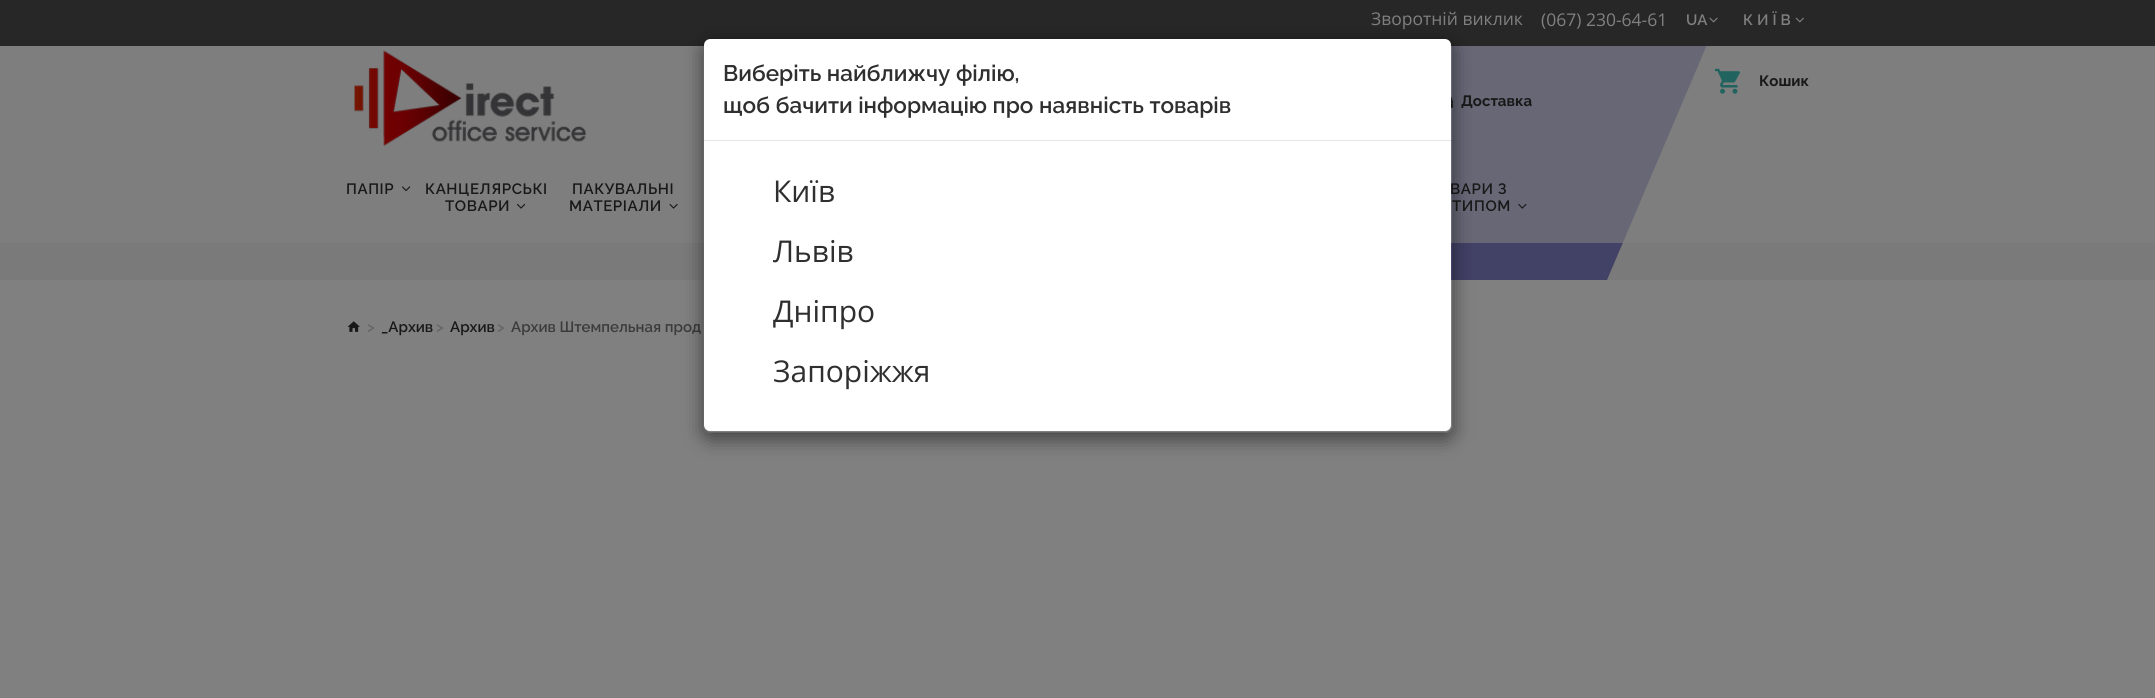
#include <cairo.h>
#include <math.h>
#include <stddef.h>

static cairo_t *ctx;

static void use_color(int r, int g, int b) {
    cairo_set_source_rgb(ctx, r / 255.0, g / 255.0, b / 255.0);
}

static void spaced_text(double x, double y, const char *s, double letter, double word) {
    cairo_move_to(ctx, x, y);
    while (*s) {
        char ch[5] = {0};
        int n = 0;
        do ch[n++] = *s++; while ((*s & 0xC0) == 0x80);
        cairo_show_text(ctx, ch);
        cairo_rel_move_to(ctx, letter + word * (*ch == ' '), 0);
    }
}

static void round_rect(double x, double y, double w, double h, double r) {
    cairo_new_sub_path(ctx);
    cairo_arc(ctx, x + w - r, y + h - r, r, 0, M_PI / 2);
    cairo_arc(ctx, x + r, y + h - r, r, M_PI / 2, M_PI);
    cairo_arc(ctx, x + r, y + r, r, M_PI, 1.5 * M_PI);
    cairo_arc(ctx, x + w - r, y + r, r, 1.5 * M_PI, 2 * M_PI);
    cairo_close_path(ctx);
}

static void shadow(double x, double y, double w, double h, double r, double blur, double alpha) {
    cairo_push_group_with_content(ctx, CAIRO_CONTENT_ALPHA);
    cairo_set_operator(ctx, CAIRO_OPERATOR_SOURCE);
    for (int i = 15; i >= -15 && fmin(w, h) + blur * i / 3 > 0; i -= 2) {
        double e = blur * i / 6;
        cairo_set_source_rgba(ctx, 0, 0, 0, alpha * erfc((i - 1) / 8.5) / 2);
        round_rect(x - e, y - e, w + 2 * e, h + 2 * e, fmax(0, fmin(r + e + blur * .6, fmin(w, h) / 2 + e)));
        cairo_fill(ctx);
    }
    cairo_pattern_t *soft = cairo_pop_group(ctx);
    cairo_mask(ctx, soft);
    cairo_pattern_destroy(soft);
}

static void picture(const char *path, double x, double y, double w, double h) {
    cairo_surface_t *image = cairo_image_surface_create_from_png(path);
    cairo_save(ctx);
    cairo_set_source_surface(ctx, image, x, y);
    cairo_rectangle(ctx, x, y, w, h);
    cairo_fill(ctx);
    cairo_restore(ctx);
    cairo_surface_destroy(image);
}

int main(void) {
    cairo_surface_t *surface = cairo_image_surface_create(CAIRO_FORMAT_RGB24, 2155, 698);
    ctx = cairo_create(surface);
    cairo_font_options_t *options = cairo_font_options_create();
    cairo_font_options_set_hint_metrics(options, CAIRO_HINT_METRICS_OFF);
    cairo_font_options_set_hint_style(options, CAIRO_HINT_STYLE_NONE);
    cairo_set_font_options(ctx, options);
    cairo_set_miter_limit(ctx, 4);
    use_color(128, 128, 128);
    cairo_paint(ctx);
    use_color(122, 122, 122);
    cairo_rectangle(ctx, 0, 46, 2155, 234);
    cairo_fill(ctx);
    use_color(66, 65, 102);
    cairo_new_path(ctx);
    cairo_move_to(ctx, 1345, -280);
    cairo_line_to(ctx, 1845, -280);
    cairo_line_to(ctx, 1607, 280);
    cairo_line_to(ctx, 1107, 280);
    cairo_close_path(ctx);
    cairo_fill(ctx);
    use_color(39, 39, 39);
    cairo_rectangle(ctx, 0, 0, 2155, 46);
    cairo_fill(ctx);
    cairo_select_font_face(ctx, "Open Sans", CAIRO_FONT_SLANT_NORMAL, CAIRO_FONT_WEIGHT_NORMAL);
    cairo_set_font_size(ctx, 17.5);
    use_color(128, 128, 128);
    cairo_move_to(ctx, 1371, 25);
    cairo_show_text(ctx, "Зворотній виклик");
    cairo_move_to(ctx, 1541, 26);
    cairo_show_text(ctx, "(067) 230-64-61");
    cairo_select_font_face(ctx, "Raleway SemiBold", CAIRO_FONT_SLANT_NORMAL, CAIRO_FONT_WEIGHT_NORMAL);
    cairo_set_font_size(ctx, 15);
    cairo_move_to(ctx, 1686, 25);
    cairo_show_text(ctx, "UA");
    picture("img1.png", 1709, 17, 9, 6);
    spaced_text(1743, 25, "КИЇВ", 4, 0);
    picture("img2.png", 1795, 17, 9, 6);
    cairo_set_source_rgba(ctx, 0.502, 0.502, 0.502, 0.6);
    cairo_rectangle(ctx, 0, 46, 2155, 197);
    cairo_fill(ctx);
    picture("img3.png", 354, 50, 232, 96);
    picture("img4.png", 1715, 68, 25, 26);
    cairo_select_font_face(ctx, "Raleway", CAIRO_FONT_SLANT_NORMAL, CAIRO_FONT_WEIGHT_BOLD);
    use_color(24, 24, 24);
    cairo_move_to(ctx, 1759, 86);
    cairo_show_text(ctx, "Кошик");
    picture("img5.png", 1451, 96, 2, 12);
    cairo_move_to(ctx, 1461, 106);
    cairo_show_text(ctx, "Доставка");
    cairo_select_font_face(ctx, "Raleway SemiBold", CAIRO_FONT_SLANT_NORMAL, CAIRO_FONT_WEIGHT_NORMAL);
    spaced_text(346, 194, "ПАПІР", 0.6, 0);
    picture("img6.png", 402, 186, 9, 6);
    spaced_text(425, 194, "КАНЦЕЛЯРСЬКІ", 0.6, 0);
    spaced_text(445, 211, "ТОВАРИ", 0.6, 0);
    picture("img7.png", 516, 203, 10, 6);
    spaced_text(572, 194, "ПАКУВАЛЬНІ", 0.6, 0);
    spaced_text(569, 211, "МАТЕРІАЛИ", 0.6, 0);
    picture("img8.png", 669, 203, 9, 6);
    spaced_text(1450, 194, "ВАРИ З", 0.6, 0);
    spaced_text(1452, 211, "ТИПОМ", 0.6, 0);
    picture("img9.png", 1518, 203, 9, 6);
    picture("img10.png", 347, 321, 13, 11);
    use_color(102, 102, 102);
    cairo_move_to(ctx, 367, 332);
    cairo_show_text(ctx, ">");
    use_color(24, 24, 24);
    cairo_move_to(ctx, 381, 332);
    cairo_show_text(ctx, "_Архив");
    use_color(102, 102, 102);
    cairo_move_to(ctx, 436, 332);
    cairo_show_text(ctx, ">");
    use_color(24, 24, 24);
    cairo_move_to(ctx, 450, 332);
    cairo_show_text(ctx, "Архив");
    use_color(102, 102, 102);
    cairo_move_to(ctx, 497, 332);
    cairo_show_text(ctx, ">");
    use_color(59, 59, 59);
    cairo_move_to(ctx, 511, 332);
    cairo_show_text(ctx, "Архив Штемпельная прод");
    cairo_save(ctx);
    cairo_set_fill_rule(ctx, CAIRO_FILL_RULE_EVEN_ODD);
    cairo_new_path(ctx);
    cairo_move_to(ctx, 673, 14);
    cairo_line_to(ctx, 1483, 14);
    cairo_line_to(ctx, 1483, 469);
    cairo_line_to(ctx, 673, 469);
    cairo_close_path(ctx);
    cairo_move_to(ctx, 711, 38);
    cairo_line_to(ctx, 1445, 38);
    cairo_curve_to(ctx, 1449.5, 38, 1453, 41.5, 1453, 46);
    cairo_line_to(ctx, 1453, 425);
    cairo_curve_to(ctx, 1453, 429.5, 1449.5, 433, 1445, 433);
    cairo_line_to(ctx, 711, 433);
    cairo_curve_to(ctx, 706.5, 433, 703, 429.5, 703, 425);
    cairo_line_to(ctx, 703, 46);
    cairo_curve_to(ctx, 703, 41.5, 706.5, 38, 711, 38);
    cairo_close_path(ctx);
    cairo_clip(ctx);
    use_color(0, 0, 0);
    shadow(703, 44, 750, 395, 8, 9.5, 0.5);
    cairo_restore(ctx);
    use_color(255, 255, 255);
    round_rect(704, 39, 747, 392, 6);
    cairo_fill(ctx);
    round_rect(703.5, 38.5, 749, 394, 7.5);
    cairo_set_source_rgba(ctx, 0, 0, 0, 0.2);
    cairo_set_line_width(ctx, 1);
    cairo_stroke(ctx);
    use_color(229, 229, 229);
    cairo_rectangle(ctx, 704, 140, 747, 1);
    cairo_fill(ctx);
    cairo_set_font_size(ctx, 22.5);
    use_color(47, 47, 47);
    cairo_move_to(ctx, 723, 81);
    cairo_show_text(ctx, "Виберіть найближчу філію,");
    cairo_move_to(ctx, 723, 113);
    cairo_show_text(ctx, "щоб бачити інформацію про наявність товарів");
    cairo_select_font_face(ctx, "Open Sans", CAIRO_FONT_SLANT_NORMAL, CAIRO_FONT_WEIGHT_NORMAL);
    cairo_set_font_size(ctx, 30);
    cairo_move_to(ctx, 773, 202);
    cairo_show_text(ctx, "Київ");
    cairo_move_to(ctx, 773, 262);
    cairo_show_text(ctx, "Львів");
    cairo_move_to(ctx, 773, 322);
    cairo_show_text(ctx, "Дніпро");
    cairo_move_to(ctx, 773, 382);
    cairo_show_text(ctx, "Запоріжжя");
    cairo_surface_write_to_png(surface, "result.png");
    cairo_font_options_destroy(options);
    cairo_destroy(ctx);
    cairo_surface_destroy(surface);
    return 0;
}
